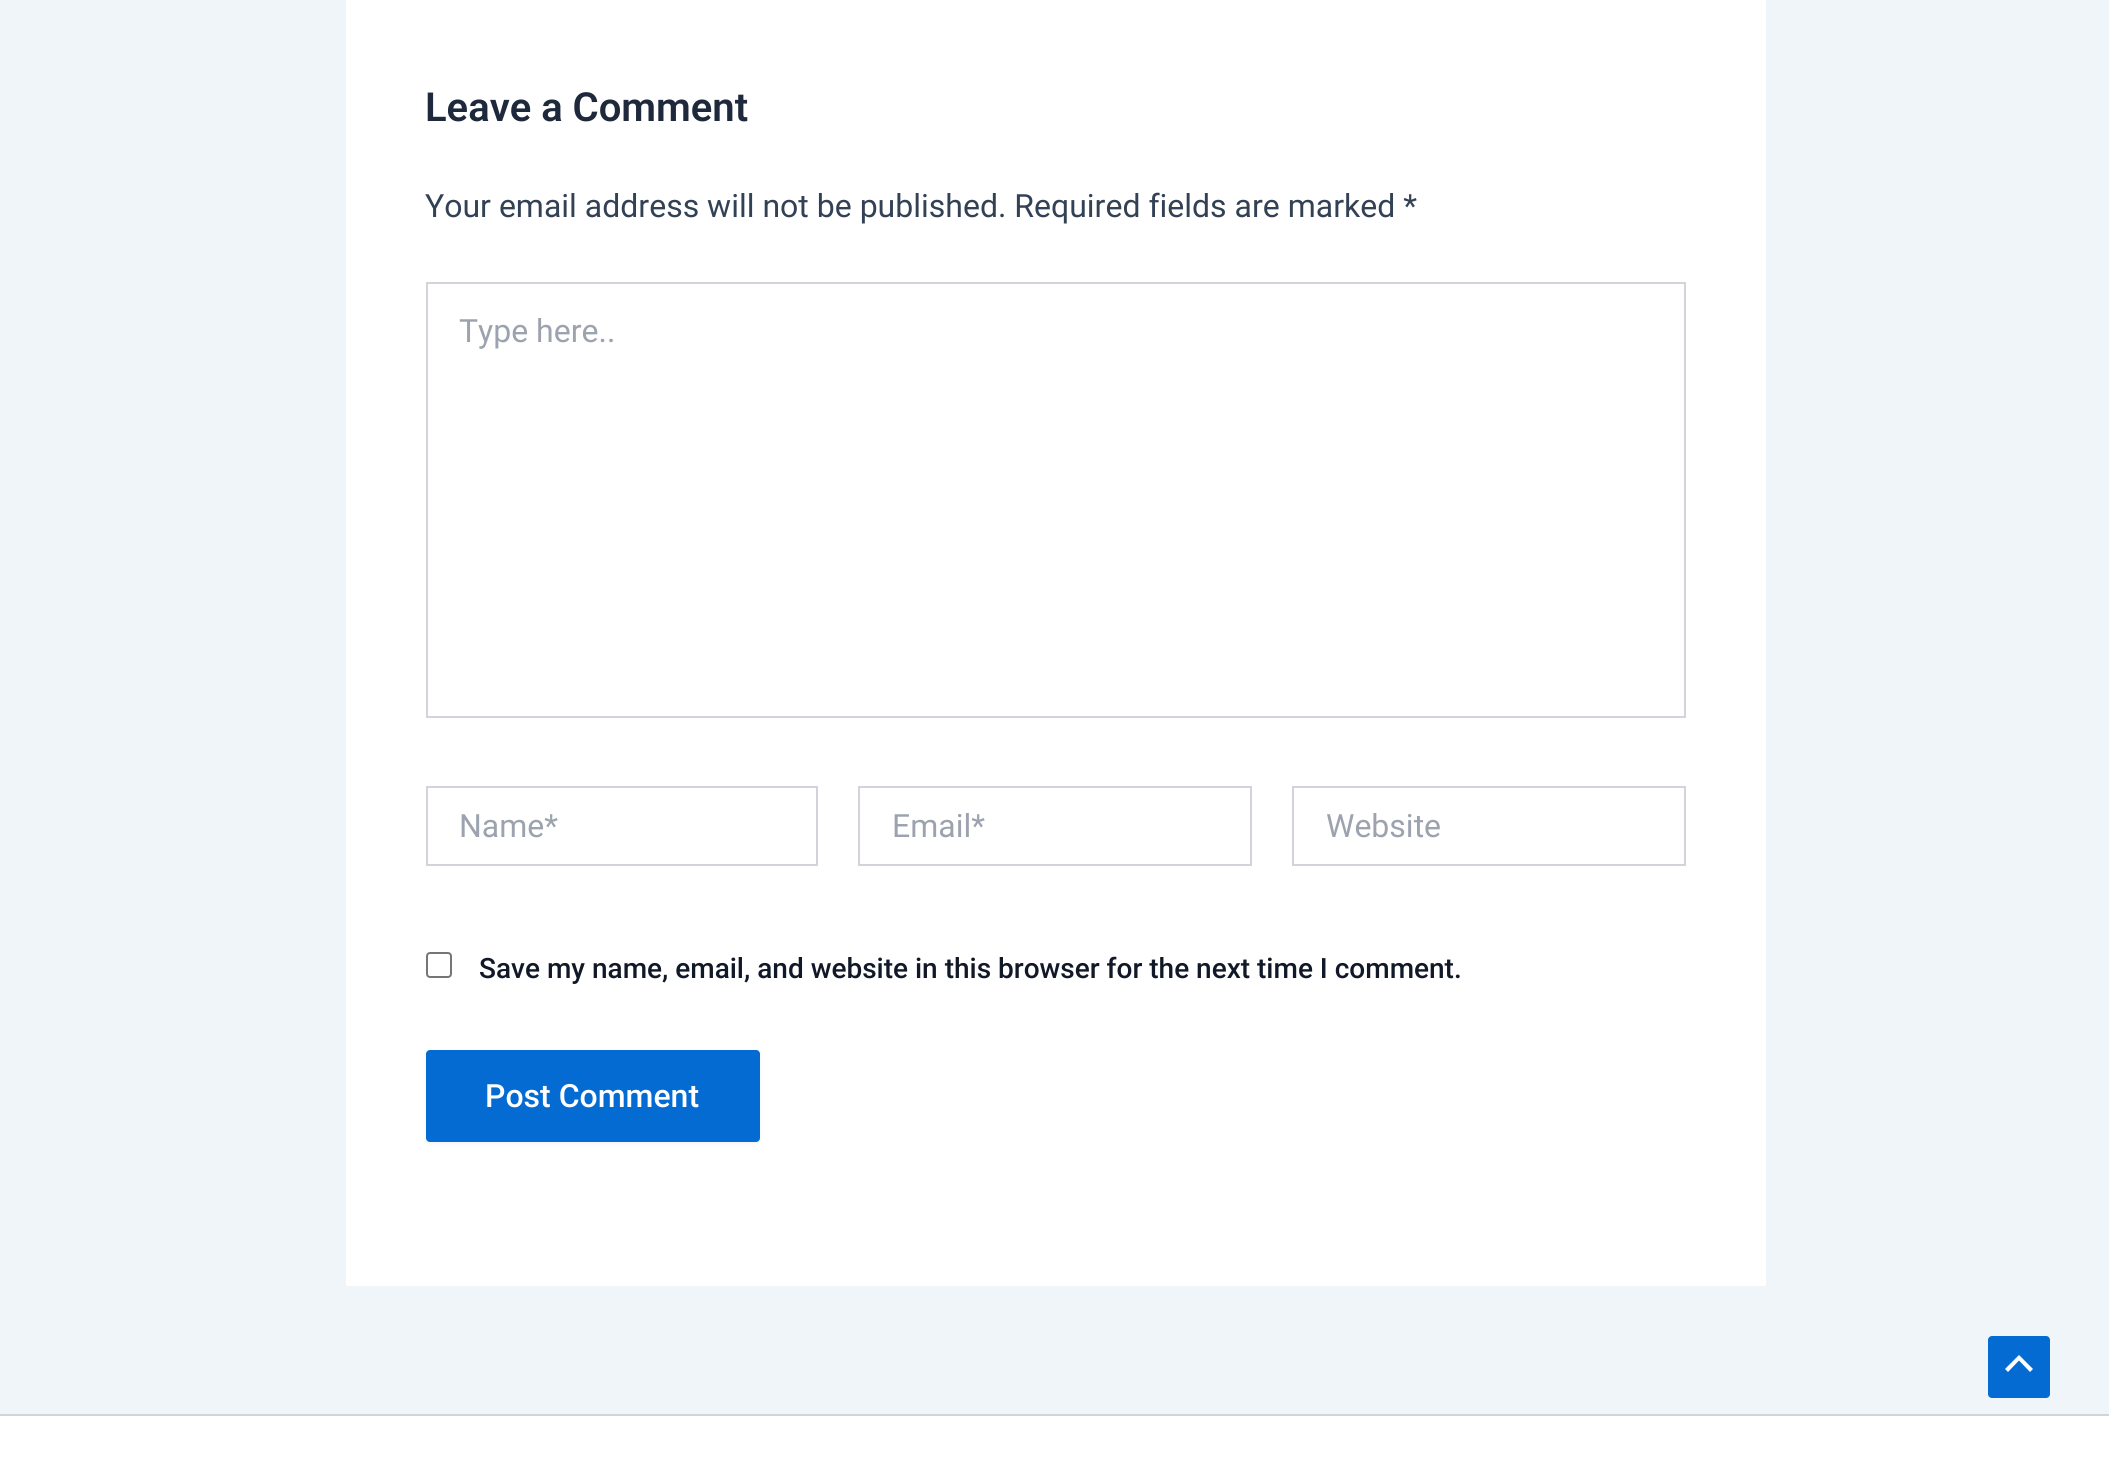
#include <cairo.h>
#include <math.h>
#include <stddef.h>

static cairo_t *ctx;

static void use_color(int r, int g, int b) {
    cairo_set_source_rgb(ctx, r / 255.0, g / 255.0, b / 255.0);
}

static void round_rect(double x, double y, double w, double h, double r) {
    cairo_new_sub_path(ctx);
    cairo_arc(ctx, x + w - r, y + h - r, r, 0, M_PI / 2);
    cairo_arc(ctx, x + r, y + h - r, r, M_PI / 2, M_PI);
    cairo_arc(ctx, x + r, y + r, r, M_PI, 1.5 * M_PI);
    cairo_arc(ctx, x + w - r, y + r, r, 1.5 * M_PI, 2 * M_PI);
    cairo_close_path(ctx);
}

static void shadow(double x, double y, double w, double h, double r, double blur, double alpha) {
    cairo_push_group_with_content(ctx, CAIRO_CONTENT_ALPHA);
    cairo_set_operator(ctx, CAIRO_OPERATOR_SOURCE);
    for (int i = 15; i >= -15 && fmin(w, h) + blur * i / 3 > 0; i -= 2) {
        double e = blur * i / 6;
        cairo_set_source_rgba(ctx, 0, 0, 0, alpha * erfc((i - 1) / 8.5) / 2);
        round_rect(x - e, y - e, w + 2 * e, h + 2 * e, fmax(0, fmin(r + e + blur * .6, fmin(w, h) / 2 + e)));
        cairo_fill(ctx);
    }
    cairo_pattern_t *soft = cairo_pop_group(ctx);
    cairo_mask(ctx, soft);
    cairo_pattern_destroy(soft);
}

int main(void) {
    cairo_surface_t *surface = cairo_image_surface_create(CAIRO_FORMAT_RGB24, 2109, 1457);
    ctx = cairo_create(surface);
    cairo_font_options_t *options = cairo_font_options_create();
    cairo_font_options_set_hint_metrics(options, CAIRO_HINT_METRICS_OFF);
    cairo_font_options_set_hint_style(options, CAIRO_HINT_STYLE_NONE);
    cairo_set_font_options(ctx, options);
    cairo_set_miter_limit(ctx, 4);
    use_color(240, 245, 250);
    cairo_paint(ctx);
    use_color(255, 255, 255);
    cairo_rectangle(ctx, 346, 0, 1420, 1286);
    cairo_fill(ctx);
    cairo_select_font_face(ctx, "Roboto SemiBold", CAIRO_FONT_SLANT_NORMAL, CAIRO_FONT_WEIGHT_NORMAL);
    cairo_set_font_size(ctx, 40);
    use_color(30, 41, 59);
    cairo_move_to(ctx, 425, 121);
    cairo_show_text(ctx, "Leave a Comment");
    cairo_select_font_face(ctx, "Roboto", CAIRO_FONT_SLANT_NORMAL, CAIRO_FONT_WEIGHT_NORMAL);
    cairo_set_font_size(ctx, 32);
    use_color(51, 65, 85);
    cairo_move_to(ctx, 425, 217);
    cairo_show_text(ctx, "Your email address will not be published. Required fields are marked *");
    cairo_rectangle(ctx, 427, 283, 1258, 434);
    use_color(209, 213, 219);
    cairo_stroke(ctx);
    use_color(156, 163, 175);
    cairo_move_to(ctx, 459, 342);
    cairo_show_text(ctx, "Type here..");
    cairo_rectangle(ctx, 427, 787, 390, 78);
    use_color(209, 213, 219);
    cairo_stroke(ctx);
    use_color(156, 163, 175);
    cairo_move_to(ctx, 459, 837);
    cairo_show_text(ctx, "Name*");
    cairo_rectangle(ctx, 859, 787, 392, 78);
    use_color(209, 213, 219);
    cairo_stroke(ctx);
    use_color(156, 163, 175);
    cairo_move_to(ctx, 892, 837);
    cairo_show_text(ctx, "Email*");
    cairo_rectangle(ctx, 1293, 787, 392, 78);
    use_color(209, 213, 219);
    cairo_stroke(ctx);
    use_color(156, 163, 175);
    cairo_move_to(ctx, 1326, 837);
    cairo_show_text(ctx, "Website");
    round_rect(427, 953, 24, 24, 3);
    use_color(118, 118, 118);
    cairo_stroke(ctx);
    cairo_select_font_face(ctx, "Roboto Medium", CAIRO_FONT_SLANT_NORMAL, CAIRO_FONT_WEIGHT_NORMAL);
    cairo_set_font_size(ctx, 28);
    use_color(17, 24, 39);
    cairo_move_to(ctx, 479, 978);
    cairo_show_text(ctx, "Save my name, email, and website in this browser for the next time I comment.");
    use_color(0, 0, 0);
    shadow(426, 1052, 334, 92, 4, 2, 0.05);
    use_color(4, 107, 210);
    round_rect(426, 1050, 334, 92, 4);
    cairo_fill(ctx);
    cairo_set_font_size(ctx, 32);
    use_color(255, 255, 255);
    cairo_move_to(ctx, 485, 1107);
    cairo_show_text(ctx, "Post Comment");
    cairo_rectangle(ctx, 0, 1416, 2109, 41);
    cairo_fill(ctx);
    use_color(209, 213, 219);
    cairo_rectangle(ctx, 0, 1414, 2109, 2);
    cairo_fill(ctx);
    use_color(4, 107, 210);
    round_rect(1988, 1336, 62, 62, 4);
    cairo_fill(ctx);
    use_color(255, 255, 255);
    cairo_new_path(ctx);
    cairo_move_to(ctx, 2033, 1369);
    cairo_line_to(ctx, 2019, 1355);
    cairo_line_to(ctx, 2005, 1369);
    cairo_line_to(ctx, 2008, 1372);
    cairo_line_to(ctx, 2019, 1360.5);
    cairo_line_to(ctx, 2030, 1372);
    cairo_close_path(ctx);
    cairo_fill(ctx);
    cairo_surface_write_to_png(surface, "result.png");
    cairo_font_options_destroy(options);
    cairo_destroy(ctx);
    cairo_surface_destroy(surface);
    return 0;
}
